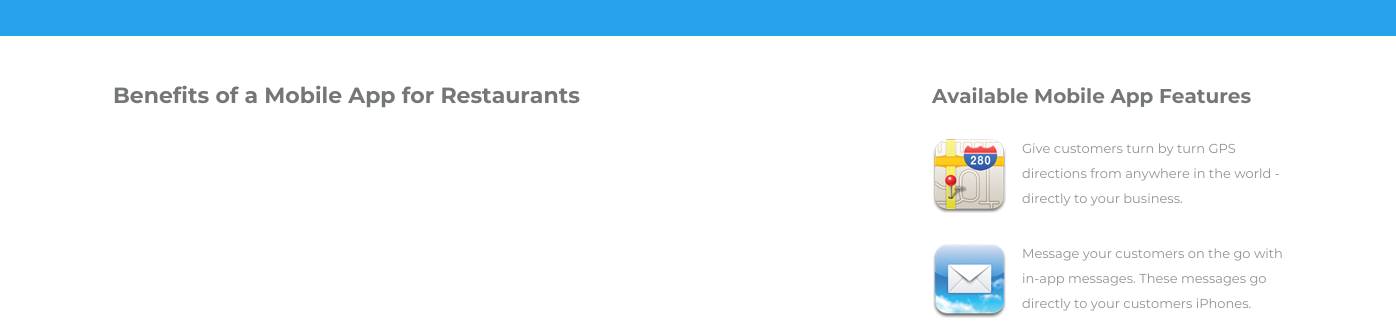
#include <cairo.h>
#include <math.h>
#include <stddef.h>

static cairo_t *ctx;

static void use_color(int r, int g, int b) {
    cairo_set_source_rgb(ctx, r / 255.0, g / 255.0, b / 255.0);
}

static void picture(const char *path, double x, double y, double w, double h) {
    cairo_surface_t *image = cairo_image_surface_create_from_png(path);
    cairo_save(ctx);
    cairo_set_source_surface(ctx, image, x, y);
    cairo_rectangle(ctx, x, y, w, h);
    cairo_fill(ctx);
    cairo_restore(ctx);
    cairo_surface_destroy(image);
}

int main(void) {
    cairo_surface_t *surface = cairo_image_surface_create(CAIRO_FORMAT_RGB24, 1396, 325);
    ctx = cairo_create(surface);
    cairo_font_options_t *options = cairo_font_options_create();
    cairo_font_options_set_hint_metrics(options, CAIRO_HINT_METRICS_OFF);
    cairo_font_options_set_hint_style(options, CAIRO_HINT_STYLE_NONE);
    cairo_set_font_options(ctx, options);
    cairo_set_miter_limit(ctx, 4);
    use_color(255, 255, 255);
    cairo_paint(ctx);
    use_color(38, 163, 234);
    cairo_rectangle(ctx, 0, 0, 1396, 36);
    cairo_fill(ctx);
    cairo_select_font_face(ctx, "Montserrat", CAIRO_FONT_SLANT_NORMAL, CAIRO_FONT_WEIGHT_BOLD);
    cairo_set_font_size(ctx, 22);
    use_color(116, 119, 120);
    cairo_move_to(ctx, 113, 103);
    cairo_show_text(ctx, "Benefits of a Mobile App for Restaurants");
    cairo_set_font_size(ctx, 20);
    cairo_move_to(ctx, 932, 103);
    cairo_show_text(ctx, "Available Mobile App Features");
    picture("img1.png", 933, 139, 73, 74);
    cairo_select_font_face(ctx, "Montserrat", CAIRO_FONT_SLANT_NORMAL, CAIRO_FONT_WEIGHT_NORMAL);
    cairo_set_font_size(ctx, 13);
    use_color(143, 147, 148);
    cairo_move_to(ctx, 1022, 153);
    cairo_show_text(ctx, "Give customers turn by turn GPS");
    cairo_move_to(ctx, 1022, 178);
    cairo_show_text(ctx, "directions from anywhere in the world -");
    cairo_move_to(ctx, 1022, 203);
    cairo_show_text(ctx, "directly to your business.");
    picture("img2.png", 933, 244, 73, 74);
    cairo_move_to(ctx, 1022, 258);
    cairo_show_text(ctx, "Message your customers on the go with");
    cairo_move_to(ctx, 1022, 283);
    cairo_show_text(ctx, "in-app messages. These messages go");
    cairo_move_to(ctx, 1022, 308);
    cairo_show_text(ctx, "directly to your customers iPhones.");
    cairo_surface_write_to_png(surface, "result.png");
    cairo_font_options_destroy(options);
    cairo_destroy(ctx);
    cairo_surface_destroy(surface);
    return 0;
}
